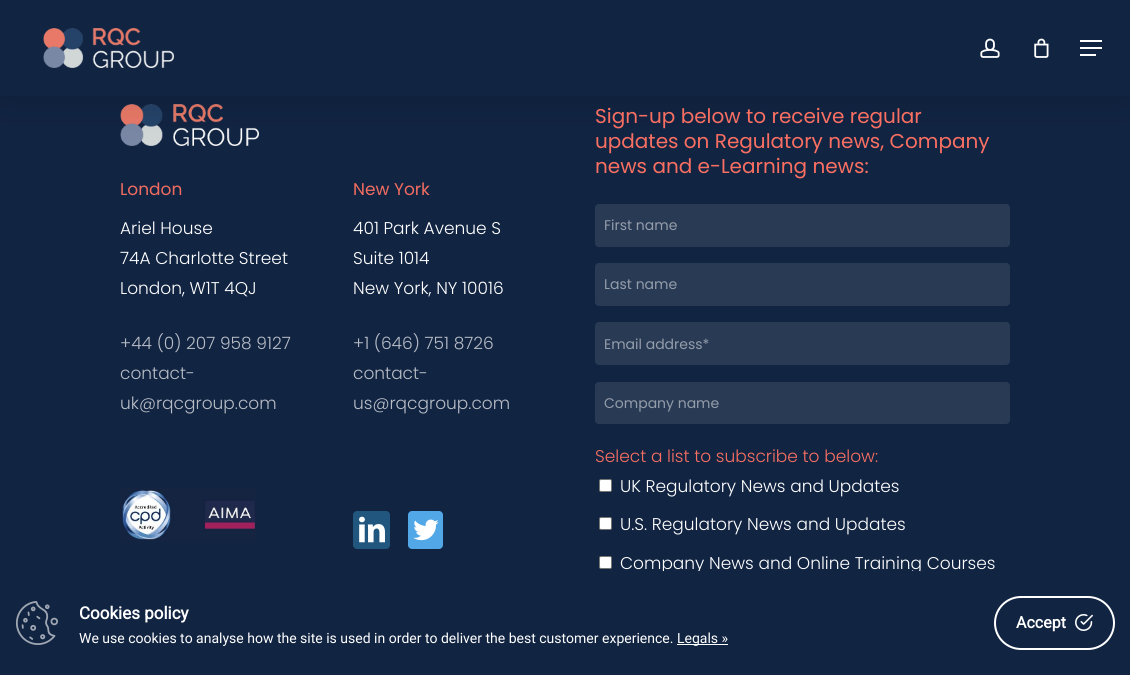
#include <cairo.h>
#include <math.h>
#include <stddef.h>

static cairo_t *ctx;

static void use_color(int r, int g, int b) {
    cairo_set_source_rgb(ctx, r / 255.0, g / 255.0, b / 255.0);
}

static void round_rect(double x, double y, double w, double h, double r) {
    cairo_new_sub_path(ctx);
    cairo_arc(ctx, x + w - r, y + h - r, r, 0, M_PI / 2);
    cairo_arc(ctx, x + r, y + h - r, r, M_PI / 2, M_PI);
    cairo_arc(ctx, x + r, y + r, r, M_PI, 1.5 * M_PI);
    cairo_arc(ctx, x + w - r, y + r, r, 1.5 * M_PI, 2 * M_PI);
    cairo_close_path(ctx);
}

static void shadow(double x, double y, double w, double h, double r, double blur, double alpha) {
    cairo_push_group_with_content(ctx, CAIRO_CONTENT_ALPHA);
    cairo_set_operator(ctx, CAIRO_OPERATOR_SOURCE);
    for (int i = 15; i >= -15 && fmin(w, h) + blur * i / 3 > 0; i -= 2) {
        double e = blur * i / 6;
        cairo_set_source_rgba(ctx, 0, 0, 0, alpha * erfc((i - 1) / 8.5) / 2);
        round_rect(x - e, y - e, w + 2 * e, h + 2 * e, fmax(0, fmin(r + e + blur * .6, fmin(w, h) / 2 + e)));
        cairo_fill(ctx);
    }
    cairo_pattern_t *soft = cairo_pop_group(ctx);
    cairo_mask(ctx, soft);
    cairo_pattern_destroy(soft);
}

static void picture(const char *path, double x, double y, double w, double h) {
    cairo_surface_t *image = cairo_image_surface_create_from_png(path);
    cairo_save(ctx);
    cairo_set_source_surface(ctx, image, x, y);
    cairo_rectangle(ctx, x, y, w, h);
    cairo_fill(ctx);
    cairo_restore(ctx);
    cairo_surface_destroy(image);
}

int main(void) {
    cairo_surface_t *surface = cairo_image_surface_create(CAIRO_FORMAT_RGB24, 1130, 675);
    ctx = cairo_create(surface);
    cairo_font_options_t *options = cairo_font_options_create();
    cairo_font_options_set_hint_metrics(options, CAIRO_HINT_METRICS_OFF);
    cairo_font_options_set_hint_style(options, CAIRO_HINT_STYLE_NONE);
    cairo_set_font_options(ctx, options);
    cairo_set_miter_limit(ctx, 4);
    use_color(17, 36, 66);
    cairo_paint(ctx);
    picture("img4.png", 120, 104, 139, 42);
    use_color(0, 0, 0);
    shadow(0, 3, 1130, 96, 0, 22.5, 0.15);
    use_color(17, 36, 66);
    cairo_rectangle(ctx, 0, 0, 1130, 96);
    cairo_fill(ctx);
    picture("img1.png", 43, 28, 131, 40);
    picture("img2.png", 980, 38, 20, 20);
    picture("img3.png", 1034, 38, 15, 20);
    use_color(255, 255, 255);
    cairo_rectangle(ctx, 1080, 40, 22, 2);
    cairo_fill(ctx);
    cairo_rectangle(ctx, 1080, 54, 16, 2);
    cairo_fill(ctx);
    cairo_rectangle(ctx, 1080, 47, 22, 2);
    cairo_fill(ctx);
    cairo_select_font_face(ctx, "Poppins", CAIRO_FONT_SLANT_NORMAL, CAIRO_FONT_WEIGHT_NORMAL);
    cairo_set_font_size(ctx, 17);
    use_color(240, 108, 96);
    cairo_move_to(ctx, 120, 195);
    cairo_show_text(ctx, "London");
    cairo_select_font_face(ctx, "Poppins Light", CAIRO_FONT_SLANT_NORMAL, CAIRO_FONT_WEIGHT_NORMAL);
    use_color(255, 255, 255);
    cairo_move_to(ctx, 120, 234);
    cairo_show_text(ctx, "Ariel House");
    cairo_move_to(ctx, 120, 264);
    cairo_show_text(ctx, "74A Charlotte Street");
    cairo_move_to(ctx, 120, 294);
    cairo_show_text(ctx, "London, W1T 4QJ");
    use_color(184, 189, 198);
    cairo_move_to(ctx, 120, 349);
    cairo_show_text(ctx, "+44 (0) 207 958 9127");
    cairo_move_to(ctx, 120, 379);
    cairo_show_text(ctx, "contact-");
    cairo_move_to(ctx, 120, 409);
    cairo_show_text(ctx, "uk@rqcgroup.com");
    cairo_select_font_face(ctx, "Poppins", CAIRO_FONT_SLANT_NORMAL, CAIRO_FONT_WEIGHT_NORMAL);
    use_color(240, 108, 96);
    cairo_move_to(ctx, 353, 195);
    cairo_show_text(ctx, "New York");
    cairo_select_font_face(ctx, "Poppins Light", CAIRO_FONT_SLANT_NORMAL, CAIRO_FONT_WEIGHT_NORMAL);
    use_color(255, 255, 255);
    cairo_move_to(ctx, 353, 234);
    cairo_show_text(ctx, "401 Park Avenue S");
    cairo_move_to(ctx, 353, 264);
    cairo_show_text(ctx, "Suite 1014");
    cairo_move_to(ctx, 353, 294);
    cairo_show_text(ctx, "New York, NY 10016");
    use_color(184, 189, 198);
    cairo_move_to(ctx, 353, 349);
    cairo_show_text(ctx, "+1 (646) 751 8726");
    cairo_move_to(ctx, 353, 379);
    cairo_show_text(ctx, "contact-");
    cairo_move_to(ctx, 353, 409);
    cairo_show_text(ctx, "us@rqcgroup.com");
    picture("img5.png", 120, 488, 136, 53);
    use_color(33, 86, 126);
    round_rect(353, 511, 37, 38, 4);
    cairo_fill(ctx);
    picture("img6.png", 359, 516, 26, 27);
    use_color(82, 168, 231);
    round_rect(408, 511, 35, 38, 4);
    cairo_fill(ctx);
    picture("img7.png", 413, 519, 26, 22);
    cairo_select_font_face(ctx, "Poppins", CAIRO_FONT_SLANT_NORMAL, CAIRO_FONT_WEIGHT_NORMAL);
    cairo_set_font_size(ctx, 20);
    use_color(249, 111, 98);
    cairo_move_to(ctx, 595, 123);
    cairo_show_text(ctx, "Sign-up below to receive regular");
    cairo_move_to(ctx, 595, 148);
    cairo_show_text(ctx, "updates on Regulatory news, Company");
    cairo_move_to(ctx, 595, 173);
    cairo_show_text(ctx, "news and e-Learning news:");
    use_color(41, 58, 85);
    round_rect(595, 204, 415, 43, 4);
    cairo_fill(ctx);
    cairo_set_font_size(ctx, 14);
    use_color(148, 157, 170);
    cairo_move_to(ctx, 604, 230);
    cairo_show_text(ctx, "First name");
    use_color(41, 58, 85);
    round_rect(595, 263, 415, 43, 4);
    cairo_fill(ctx);
    use_color(148, 157, 170);
    cairo_move_to(ctx, 604, 289);
    cairo_show_text(ctx, "Last name");
    use_color(41, 58, 85);
    round_rect(595, 322, 415, 43, 4);
    cairo_fill(ctx);
    use_color(148, 157, 170);
    cairo_move_to(ctx, 604, 349);
    cairo_show_text(ctx, "Email address*");
    use_color(41, 58, 85);
    round_rect(595, 382, 415, 42, 4);
    cairo_fill(ctx);
    use_color(148, 157, 170);
    cairo_move_to(ctx, 604, 408);
    cairo_show_text(ctx, "Company name");
    cairo_select_font_face(ctx, "Poppins Light", CAIRO_FONT_SLANT_NORMAL, CAIRO_FONT_WEIGHT_NORMAL);
    cairo_set_font_size(ctx, 17);
    use_color(249, 111, 98);
    cairo_move_to(ctx, 595, 462);
    cairo_show_text(ctx, "Select a list to subscribe to below:");
    use_color(255, 255, 255);
    round_rect(599.5, 479.5, 12, 12, 1.5);
    cairo_fill_preserve(ctx);
    use_color(118, 118, 118);
    cairo_set_line_width(ctx, 1);
    cairo_stroke(ctx);
    use_color(255, 255, 255);
    cairo_move_to(ctx, 620, 492);
    cairo_show_text(ctx, "UK Regulatory News and Updates");
    round_rect(599.5, 517.5, 12, 12, 1.5);
    cairo_fill_preserve(ctx);
    use_color(118, 118, 118);
    cairo_stroke(ctx);
    use_color(255, 255, 255);
    cairo_move_to(ctx, 620, 530);
    cairo_show_text(ctx, "U.S. Regulatory News and Updates");
    round_rect(599.5, 556.5, 12, 12, 1.5);
    cairo_fill_preserve(ctx);
    use_color(118, 118, 118);
    cairo_stroke(ctx);
    use_color(255, 255, 255);
    cairo_move_to(ctx, 620, 569);
    cairo_show_text(ctx, "Company News and Online Training Courses");
    use_color(17, 36, 66);
    cairo_rectangle(ctx, 662, 571, 258, 3);
    cairo_fill(ctx);
    picture("img8.png", 16, 601, 42, 44);
    cairo_select_font_face(ctx, "Roboto", CAIRO_FONT_SLANT_NORMAL, CAIRO_FONT_WEIGHT_BOLD);
    use_color(255, 255, 255);
    cairo_move_to(ctx, 79, 619);
    cairo_show_text(ctx, "Cookies policy");
    cairo_select_font_face(ctx, "Roboto", CAIRO_FONT_SLANT_NORMAL, CAIRO_FONT_WEIGHT_NORMAL);
    cairo_set_font_size(ctx, 14);
    cairo_move_to(ctx, 79, 643);
    cairo_show_text(ctx, "We use cookies to analyse how the site is used in order to deliver the best customer experience.");
    cairo_rectangle(ctx, 677, 644, 51, 1);
    cairo_fill(ctx);
    cairo_move_to(ctx, 677, 643);
    cairo_show_text(ctx, "Legals »");
    round_rect(995, 597, 119, 52, 26);
    cairo_set_line_width(ctx, 2);
    cairo_stroke(ctx);
    cairo_select_font_face(ctx, "Roboto", CAIRO_FONT_SLANT_NORMAL, CAIRO_FONT_WEIGHT_BOLD);
    cairo_set_font_size(ctx, 16);
    cairo_move_to(ctx, 1016, 628);
    cairo_show_text(ctx, "Accept");
    picture("img9.png", 1075, 614, 18, 17);
    cairo_surface_write_to_png(surface, "result.png");
    cairo_font_options_destroy(options);
    cairo_destroy(ctx);
    cairo_surface_destroy(surface);
    return 0;
}
